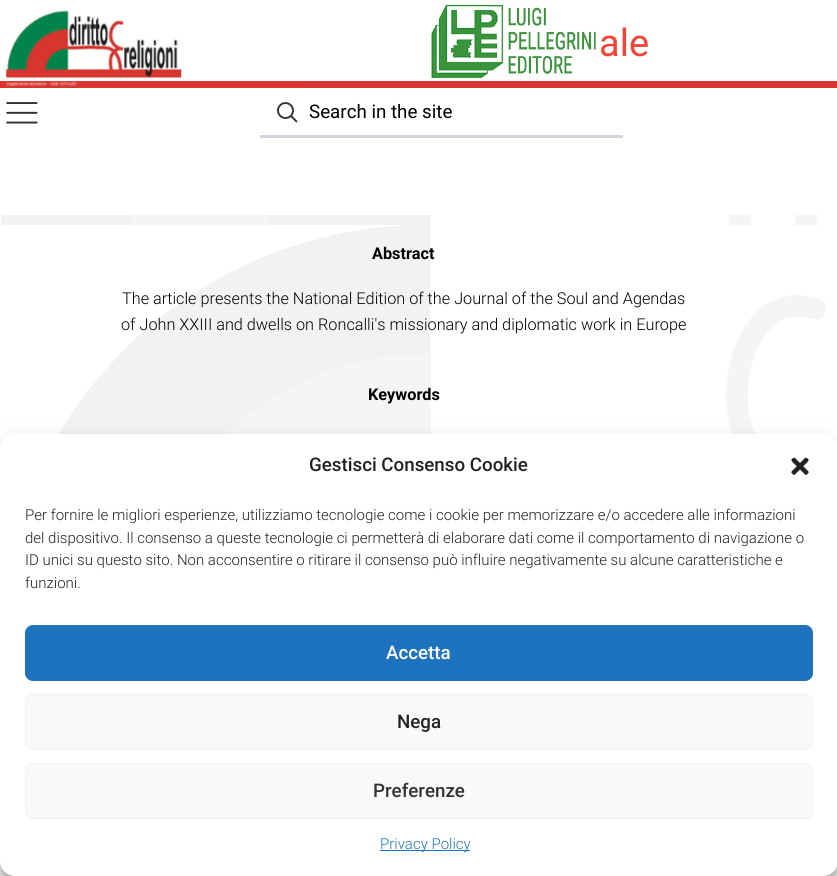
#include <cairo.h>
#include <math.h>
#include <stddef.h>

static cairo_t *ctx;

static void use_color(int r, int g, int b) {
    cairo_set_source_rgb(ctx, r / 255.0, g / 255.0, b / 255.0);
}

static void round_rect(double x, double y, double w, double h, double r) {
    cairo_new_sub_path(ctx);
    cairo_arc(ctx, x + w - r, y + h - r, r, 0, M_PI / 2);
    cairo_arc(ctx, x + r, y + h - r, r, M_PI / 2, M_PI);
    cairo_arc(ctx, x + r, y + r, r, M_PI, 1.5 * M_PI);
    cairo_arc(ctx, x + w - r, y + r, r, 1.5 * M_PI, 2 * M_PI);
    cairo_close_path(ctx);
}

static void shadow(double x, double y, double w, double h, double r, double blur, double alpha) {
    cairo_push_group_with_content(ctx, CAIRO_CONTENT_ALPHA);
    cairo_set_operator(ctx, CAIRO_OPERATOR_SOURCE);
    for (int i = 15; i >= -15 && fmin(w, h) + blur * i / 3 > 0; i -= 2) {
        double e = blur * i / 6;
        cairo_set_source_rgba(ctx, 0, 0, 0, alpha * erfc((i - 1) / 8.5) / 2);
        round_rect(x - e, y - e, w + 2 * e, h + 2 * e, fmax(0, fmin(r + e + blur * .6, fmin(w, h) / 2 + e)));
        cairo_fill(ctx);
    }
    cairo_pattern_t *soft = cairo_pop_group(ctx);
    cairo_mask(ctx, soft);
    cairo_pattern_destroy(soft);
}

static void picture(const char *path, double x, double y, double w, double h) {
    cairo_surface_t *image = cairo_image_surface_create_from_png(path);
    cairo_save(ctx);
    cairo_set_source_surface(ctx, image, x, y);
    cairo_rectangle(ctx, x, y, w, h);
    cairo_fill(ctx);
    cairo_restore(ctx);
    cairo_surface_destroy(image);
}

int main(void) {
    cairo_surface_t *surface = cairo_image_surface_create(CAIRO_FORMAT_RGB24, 837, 876);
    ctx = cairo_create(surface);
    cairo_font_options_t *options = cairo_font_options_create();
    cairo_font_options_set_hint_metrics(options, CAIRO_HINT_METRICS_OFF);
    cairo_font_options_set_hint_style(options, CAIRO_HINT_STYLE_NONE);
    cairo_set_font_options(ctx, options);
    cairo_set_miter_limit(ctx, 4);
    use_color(255, 255, 255);
    cairo_paint(ctx);
    cairo_select_font_face(ctx, "Roboto", CAIRO_FONT_SLANT_NORMAL, CAIRO_FONT_WEIGHT_NORMAL);
    cairo_set_font_size(ctx, 38);
    use_color(244, 67, 54);
    cairo_move_to(ctx, 599, 56);
    cairo_show_text(ctx, "ale");
    picture("img1.png", 6, 3, 176, 75);
    picture("img2.png", 425, 0, 175, 81);
    use_color(216, 53, 46);
    cairo_rectangle(ctx, 0, 81, 837, 7);
    cairo_fill(ctx);
    picture("img3.png", 6, 80, 300, 7);
    picture("img4.png", 6, 102, 32, 22);
    cairo_arc(ctx, 285.5, 110.5, 7.5, 0, 2 * M_PI);
    use_color(51, 51, 51);
    cairo_set_line_width(ctx, 1.9);
    cairo_stroke(ctx);
    cairo_new_path(ctx);
    cairo_move_to(ctx, 290.5, 115.5);
    cairo_line_to(ctx, 297, 122);
    cairo_stroke(ctx);
    use_color(209, 214, 222);
    cairo_rectangle(ctx, 260, 135, 363, 3);
    cairo_fill(ctx);
    cairo_set_font_size(ctx, 18.75);
    use_color(0, 0, 0);
    cairo_move_to(ctx, 309, 118);
    cairo_show_text(ctx, "Search in the site");
    picture("img5.png", 1, 215, 825, 219);
    cairo_select_font_face(ctx, "Roboto", CAIRO_FONT_SLANT_NORMAL, CAIRO_FONT_WEIGHT_BOLD);
    cairo_set_font_size(ctx, 16.25);
    cairo_move_to(ctx, 372, 259);
    cairo_show_text(ctx, "Abstract");
    cairo_select_font_face(ctx, "Roboto Light", CAIRO_FONT_SLANT_NORMAL, CAIRO_FONT_WEIGHT_NORMAL);
    cairo_move_to(ctx, 122, 304);
    cairo_show_text(ctx, "The article presents the National Edition of the Journal of the Soul and Agendas");
    cairo_move_to(ctx, 121, 330);
    cairo_show_text(ctx, "of John XXIII and dwells on Roncalli's missionary and diplomatic work in Europe");
    cairo_select_font_face(ctx, "Roboto", CAIRO_FONT_SLANT_NORMAL, CAIRO_FONT_WEIGHT_BOLD);
    cairo_move_to(ctx, 368, 400);
    cairo_show_text(ctx, "Keywords");
    use_color(0, 0, 0);
    shadow(0, 441, 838, 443, 15, 4, 0.23);
    shadow(0, 446, 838, 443, 15, 12.5, 0.19);
    use_color(255, 255, 255);
    round_rect(0, 434, 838, 442, 15);
    cairo_fill(ctx);
    cairo_select_font_face(ctx, "Roboto Medium", CAIRO_FONT_SLANT_NORMAL, CAIRO_FONT_WEIGHT_NORMAL);
    cairo_set_font_size(ctx, 18.75);
    use_color(34, 34, 34);
    cairo_move_to(ctx, 309, 471);
    cairo_show_text(ctx, "Gestisci Consenso Cookie");
    picture("img6.png", 791, 457, 18, 18);
    cairo_select_font_face(ctx, "Roboto Light", CAIRO_FONT_SLANT_NORMAL, CAIRO_FONT_WEIGHT_NORMAL);
    cairo_set_font_size(ctx, 15);
    cairo_move_to(ctx, 25, 520);
    cairo_show_text(ctx, "Per fornire le migliori esperienze, utilizziamo tecnologie come i cookie per memorizzare e/o accedere alle informazioni");
    cairo_move_to(ctx, 25, 543);
    cairo_show_text(ctx, "del dispositivo. Il consenso a queste tecnologie ci permetterà di elaborare dati come il comportamento di navigazione o");
    cairo_move_to(ctx, 25, 565);
    cairo_show_text(ctx, "ID unici su questo sito. Non acconsentire o ritirare il consenso può influire negativamente su alcune caratteristiche e");
    cairo_move_to(ctx, 25, 588);
    cairo_show_text(ctx, "funzioni.");
    use_color(30, 115, 190);
    round_rect(25.5, 625.5, 787, 55, 7.5);
    cairo_fill_preserve(ctx);
    cairo_set_line_width(ctx, 1);
    cairo_stroke(ctx);
    cairo_select_font_face(ctx, "Roboto Medium", CAIRO_FONT_SLANT_NORMAL, CAIRO_FONT_WEIGHT_NORMAL);
    cairo_set_font_size(ctx, 18.75);
    use_color(255, 255, 255);
    cairo_move_to(ctx, 386, 659);
    cairo_show_text(ctx, "Accetta");
    use_color(249, 249, 249);
    round_rect(25.5, 694.5, 787, 55, 7.5);
    cairo_fill_preserve(ctx);
    use_color(242, 242, 242);
    cairo_stroke(ctx);
    use_color(34, 34, 34);
    cairo_move_to(ctx, 397, 728);
    cairo_show_text(ctx, "Nega");
    use_color(249, 249, 249);
    round_rect(25.5, 763.5, 787, 55, 7.5);
    cairo_fill_preserve(ctx);
    use_color(242, 242, 242);
    cairo_stroke(ctx);
    use_color(51, 51, 51);
    cairo_move_to(ctx, 373, 797);
    cairo_show_text(ctx, "Preferenze");
    use_color(30, 115, 190);
    cairo_rectangle(ctx, 380, 850, 90, 1);
    cairo_fill(ctx);
    cairo_select_font_face(ctx, "Roboto Light", CAIRO_FONT_SLANT_NORMAL, CAIRO_FONT_WEIGHT_NORMAL);
    cairo_set_font_size(ctx, 15);
    cairo_move_to(ctx, 380, 849);
    cairo_show_text(ctx, "Privacy Policy");
    cairo_surface_write_to_png(surface, "result.png");
    cairo_font_options_destroy(options);
    cairo_destroy(ctx);
    cairo_surface_destroy(surface);
    return 0;
}
